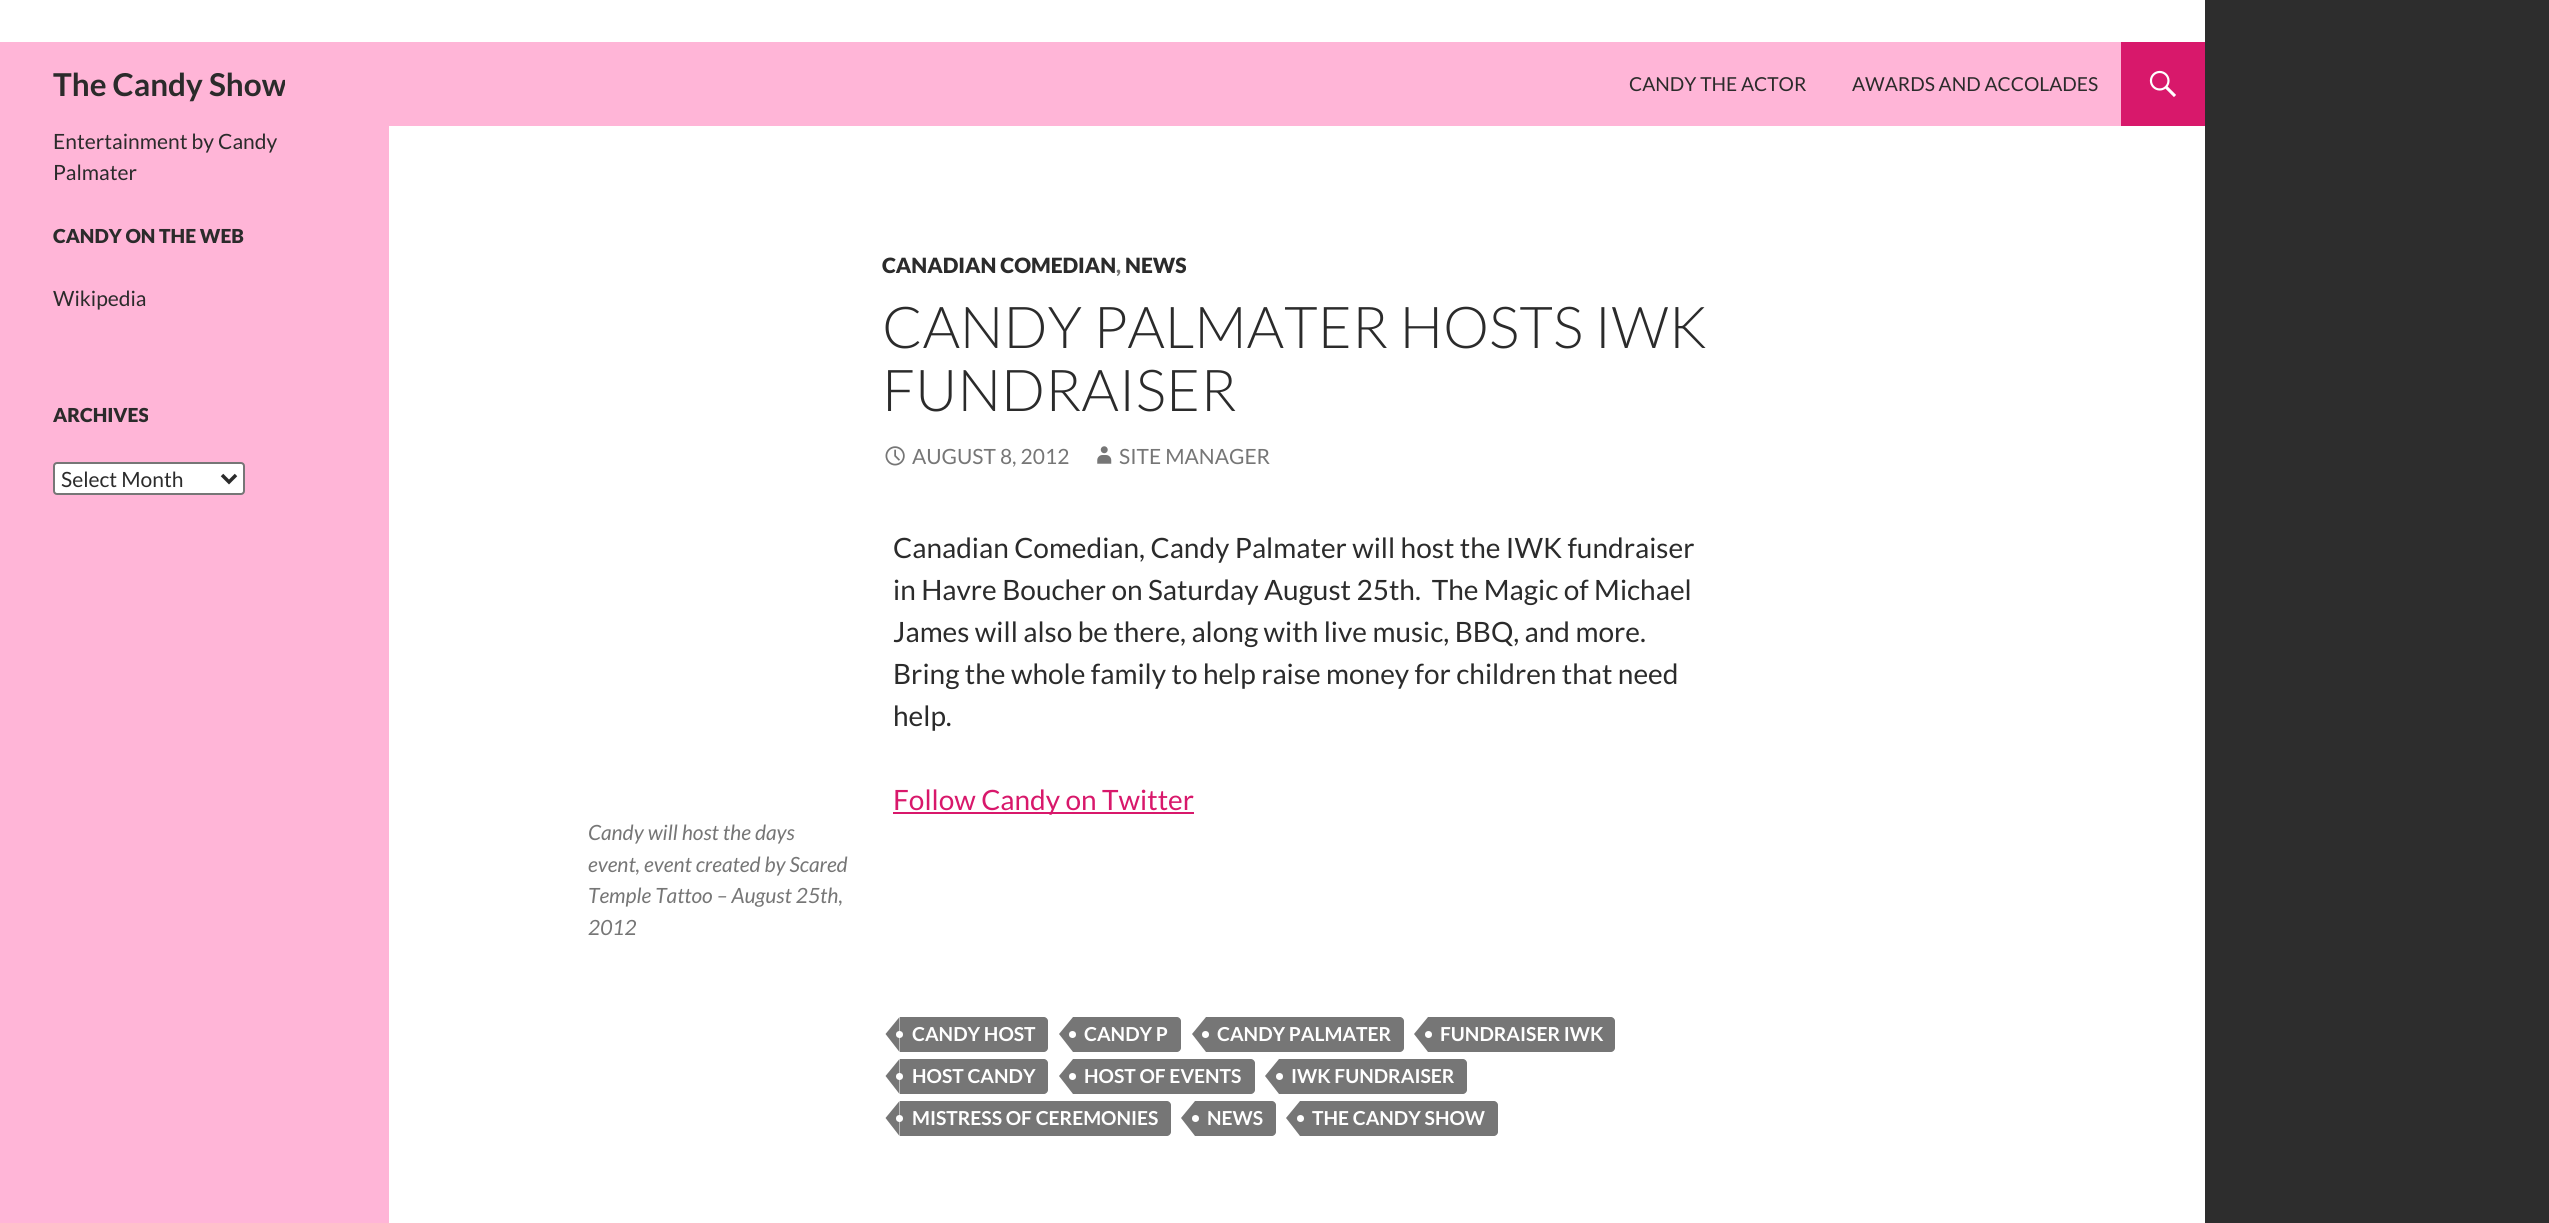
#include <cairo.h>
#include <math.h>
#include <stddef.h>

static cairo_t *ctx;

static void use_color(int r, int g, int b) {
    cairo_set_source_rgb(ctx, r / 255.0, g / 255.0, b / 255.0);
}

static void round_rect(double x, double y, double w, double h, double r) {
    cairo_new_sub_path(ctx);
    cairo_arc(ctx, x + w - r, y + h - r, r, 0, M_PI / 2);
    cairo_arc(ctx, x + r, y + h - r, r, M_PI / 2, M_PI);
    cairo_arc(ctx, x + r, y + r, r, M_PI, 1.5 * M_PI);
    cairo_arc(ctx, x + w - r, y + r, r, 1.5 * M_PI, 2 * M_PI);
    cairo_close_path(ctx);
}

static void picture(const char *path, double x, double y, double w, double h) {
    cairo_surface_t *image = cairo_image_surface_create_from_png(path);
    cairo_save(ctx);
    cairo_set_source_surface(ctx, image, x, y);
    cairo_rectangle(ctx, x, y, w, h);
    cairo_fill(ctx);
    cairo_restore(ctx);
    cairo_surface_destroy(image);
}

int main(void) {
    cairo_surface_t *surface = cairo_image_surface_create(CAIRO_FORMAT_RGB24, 2549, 1223);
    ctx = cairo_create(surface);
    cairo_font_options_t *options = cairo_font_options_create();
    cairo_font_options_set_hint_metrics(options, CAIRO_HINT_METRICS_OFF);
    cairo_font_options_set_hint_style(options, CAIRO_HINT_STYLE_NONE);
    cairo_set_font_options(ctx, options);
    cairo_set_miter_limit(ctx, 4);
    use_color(45, 45, 45);
    cairo_paint(ctx);
    use_color(255, 255, 255);
    cairo_rectangle(ctx, 389, 126, 1816, 1097);
    cairo_fill(ctx);
    cairo_rectangle(ctx, 0, 0, 2205, 42);
    cairo_fill(ctx);
    use_color(255, 181, 215);
    cairo_rectangle(ctx, 0, 42, 2121, 84);
    cairo_fill(ctx);
    cairo_save(ctx);
    cairo_rectangle(ctx, 53, 42, 232, 84);
    cairo_clip(ctx);
    cairo_select_font_face(ctx, "Lato", CAIRO_FONT_SLANT_NORMAL, CAIRO_FONT_WEIGHT_BOLD);
    cairo_set_font_size(ctx, 31.5);
    use_color(43, 43, 43);
    cairo_move_to(ctx, 53, 96);
    cairo_show_text(ctx, "The Candy Show");
    cairo_restore(ctx);
    cairo_select_font_face(ctx, "Lato", CAIRO_FONT_SLANT_NORMAL, CAIRO_FONT_WEIGHT_NORMAL);
    cairo_set_font_size(ctx, 19.25);
    use_color(43, 43, 43);
    cairo_move_to(ctx, 1629, 91);
    cairo_show_text(ctx, "CANDY THE ACTOR");
    cairo_move_to(ctx, 1852, 91);
    cairo_show_text(ctx, "AWARDS AND ACCOLADES");
    use_color(216, 24, 107);
    cairo_rectangle(ctx, 2121, 42, 84, 84);
    cairo_fill(ctx);
    picture("img1.png", 2149, 70, 27, 27);
    use_color(255, 181, 215);
    cairo_rectangle(ctx, 0, 126, 389, 1097);
    cairo_fill(ctx);
    cairo_set_font_size(ctx, 21);
    use_color(43, 43, 43);
    cairo_move_to(ctx, 53, 149);
    cairo_show_text(ctx, "Entertainment by Candy");
    cairo_move_to(ctx, 53, 180);
    cairo_show_text(ctx, "Palmater");
    cairo_select_font_face(ctx, "Lato Black", CAIRO_FONT_SLANT_NORMAL, CAIRO_FONT_WEIGHT_NORMAL);
    cairo_set_font_size(ctx, 19.25);
    cairo_move_to(ctx, 53, 243);
    cairo_show_text(ctx, "CANDY ON THE WEB");
    cairo_select_font_face(ctx, "Lato", CAIRO_FONT_SLANT_NORMAL, CAIRO_FONT_WEIGHT_NORMAL);
    cairo_set_font_size(ctx, 21);
    cairo_move_to(ctx, 53, 306);
    cairo_show_text(ctx, "Wikipedia");
    cairo_select_font_face(ctx, "Lato Black", CAIRO_FONT_SLANT_NORMAL, CAIRO_FONT_WEIGHT_NORMAL);
    cairo_set_font_size(ctx, 19.25);
    cairo_move_to(ctx, 53, 422);
    cairo_show_text(ctx, "ARCHIVES");
    use_color(255, 255, 255);
    round_rect(54, 463, 190, 31, 3);
    cairo_fill_preserve(ctx);
    use_color(118, 118, 118);
    cairo_stroke(ctx);
    cairo_new_path(ctx);
    cairo_move_to(ctx, 222, 475);
    cairo_line_to(ctx, 229, 482);
    cairo_line_to(ctx, 236, 475);
    use_color(43, 43, 43);
    cairo_set_line_width(ctx, 3.5);
    cairo_stroke(ctx);
    cairo_select_font_face(ctx, "Lato", CAIRO_FONT_SLANT_NORMAL, CAIRO_FONT_WEIGHT_NORMAL);
    cairo_set_font_size(ctx, 21);
    cairo_move_to(ctx, 61, 487);
    cairo_show_text(ctx, "Select Month");
    cairo_select_font_face(ctx, "Lato Black", CAIRO_FONT_SLANT_NORMAL, CAIRO_FONT_WEIGHT_NORMAL);
    cairo_move_to(ctx, 882, 273);
    cairo_show_text(ctx, "CANADIAN COMEDIAN");
    use_color(118, 118, 118);
    cairo_move_to(ctx, 1116, 273);
    cairo_show_text(ctx, ",");
    use_color(43, 43, 43);
    cairo_move_to(ctx, 1125, 273);
    cairo_show_text(ctx, "NEWS");
    cairo_select_font_face(ctx, "Lato Light", CAIRO_FONT_SLANT_NORMAL, CAIRO_FONT_WEIGHT_NORMAL);
    cairo_set_font_size(ctx, 57.75);
    cairo_move_to(ctx, 882, 348);
    cairo_show_text(ctx, "CANDY PALMATER HOSTS IWK");
    cairo_move_to(ctx, 882, 411);
    cairo_show_text(ctx, "FUNDRAISER");
    picture("img2.png", 885, 446, 20, 20);
    cairo_select_font_face(ctx, "Lato", CAIRO_FONT_SLANT_NORMAL, CAIRO_FONT_WEIGHT_NORMAL);
    cairo_set_font_size(ctx, 21);
    use_color(118, 118, 118);
    cairo_move_to(ctx, 912, 464);
    cairo_show_text(ctx, "AUGUST 8, 2012");
    picture("img3.png", 1097, 446, 15, 18);
    cairo_move_to(ctx, 1119, 464);
    cairo_show_text(ctx, "SITE MANAGER");
    cairo_set_font_size(ctx, 28);
    use_color(43, 43, 43);
    cairo_move_to(ctx, 893, 558);
    cairo_show_text(ctx, "Canadian Comedian, Candy Palmater will host the IWK fundraiser");
    cairo_move_to(ctx, 893, 600);
    cairo_show_text(ctx, "in Havre Boucher on Saturday August 25th.  The Magic of Michael");
    cairo_move_to(ctx, 893, 642);
    cairo_show_text(ctx, "James will also be there, along with live music, BBQ, and more.");
    cairo_move_to(ctx, 893, 684);
    cairo_show_text(ctx, "Bring the whole family to help raise money for children that need");
    cairo_move_to(ctx, 893, 726);
    cairo_show_text(ctx, "help.");
    use_color(216, 24, 107);
    cairo_rectangle(ctx, 893, 812, 301, 2);
    cairo_fill(ctx);
    cairo_move_to(ctx, 893, 810);
    cairo_show_text(ctx, "Follow Candy on Twitter");
    cairo_select_font_face(ctx, "Lato", CAIRO_FONT_SLANT_ITALIC, CAIRO_FONT_WEIGHT_NORMAL);
    cairo_set_font_size(ctx, 21);
    use_color(118, 118, 118);
    cairo_move_to(ctx, 588, 840);
    cairo_show_text(ctx, "Candy will host the days");
    cairo_move_to(ctx, 588, 872);
    cairo_show_text(ctx, "event, event created by Scared");
    cairo_move_to(ctx, 588, 903);
    cairo_show_text(ctx, "Temple Tattoo – August 25th,");
    cairo_move_to(ctx, 588, 935);
    cairo_show_text(ctx, "2012");
    cairo_new_path(ctx);
    cairo_move_to(ctx, 900, 1017);
    cairo_line_to(ctx, 1044, 1017);
    cairo_curve_to(ctx, 1046, 1017, 1048, 1019, 1048, 1021);
    cairo_line_to(ctx, 1048, 1048);
    cairo_curve_to(ctx, 1048, 1050, 1046, 1052, 1044, 1052);
    cairo_line_to(ctx, 900, 1052);
    cairo_close_path(ctx);
    cairo_fill(ctx);
    cairo_new_path(ctx);
    cairo_move_to(ctx, 899.5, 1017);
    cairo_line_to(ctx, 899.5, 1052);
    cairo_line_to(ctx, 885.5, 1034);
    cairo_close_path(ctx);
    cairo_fill(ctx);
    cairo_select_font_face(ctx, "Lato", CAIRO_FONT_SLANT_NORMAL, CAIRO_FONT_WEIGHT_BOLD);
    cairo_set_font_size(ctx, 19.25);
    use_color(255, 255, 255);
    cairo_move_to(ctx, 912, 1041);
    cairo_show_text(ctx, "CANDY HOST");
    cairo_new_path(ctx);
    cairo_arc(ctx, 899.5, 1034.5, 3.5, 0, 2 * M_PI);
    cairo_fill(ctx);
    use_color(118, 118, 118);
    cairo_new_path(ctx);
    cairo_move_to(ctx, 1073, 1017);
    cairo_line_to(ctx, 1177, 1017);
    cairo_curve_to(ctx, 1179, 1017, 1181, 1019, 1181, 1021);
    cairo_line_to(ctx, 1181, 1048);
    cairo_curve_to(ctx, 1181, 1050, 1179, 1052, 1177, 1052);
    cairo_line_to(ctx, 1073, 1052);
    cairo_close_path(ctx);
    cairo_fill(ctx);
    cairo_new_path(ctx);
    cairo_move_to(ctx, 1073, 1017);
    cairo_line_to(ctx, 1073, 1052);
    cairo_line_to(ctx, 1059, 1034);
    cairo_close_path(ctx);
    cairo_fill(ctx);
    use_color(255, 255, 255);
    cairo_move_to(ctx, 1084, 1041);
    cairo_show_text(ctx, "CANDY P");
    cairo_new_path(ctx);
    cairo_arc(ctx, 1072.5, 1034.5, 3.5, 0, 2 * M_PI);
    cairo_fill(ctx);
    use_color(118, 118, 118);
    cairo_new_path(ctx);
    cairo_move_to(ctx, 1206, 1017);
    cairo_line_to(ctx, 1400, 1017);
    cairo_curve_to(ctx, 1402, 1017, 1404, 1019, 1404, 1021);
    cairo_line_to(ctx, 1404, 1048);
    cairo_curve_to(ctx, 1404, 1050, 1402, 1052, 1400, 1052);
    cairo_line_to(ctx, 1206, 1052);
    cairo_close_path(ctx);
    cairo_fill(ctx);
    cairo_new_path(ctx);
    cairo_move_to(ctx, 1206, 1017);
    cairo_line_to(ctx, 1206, 1052);
    cairo_line_to(ctx, 1192, 1034);
    cairo_close_path(ctx);
    cairo_fill(ctx);
    use_color(255, 255, 255);
    cairo_move_to(ctx, 1217, 1041);
    cairo_show_text(ctx, "CANDY PALMATER");
    cairo_new_path(ctx);
    cairo_arc(ctx, 1205.5, 1034.5, 3.5, 0, 2 * M_PI);
    cairo_fill(ctx);
    use_color(118, 118, 118);
    cairo_new_path(ctx);
    cairo_move_to(ctx, 1428, 1017);
    cairo_line_to(ctx, 1611, 1017);
    cairo_curve_to(ctx, 1613, 1017, 1615, 1019, 1615, 1021);
    cairo_line_to(ctx, 1615, 1048);
    cairo_curve_to(ctx, 1615, 1050, 1613, 1052, 1611, 1052);
    cairo_line_to(ctx, 1428, 1052);
    cairo_close_path(ctx);
    cairo_fill(ctx);
    cairo_new_path(ctx);
    cairo_move_to(ctx, 1428, 1017);
    cairo_line_to(ctx, 1428, 1052);
    cairo_line_to(ctx, 1414, 1034);
    cairo_close_path(ctx);
    cairo_fill(ctx);
    use_color(255, 255, 255);
    cairo_arc(ctx, 1428.5, 1034.5, 3.5, 0, 2 * M_PI);
    cairo_fill(ctx);
    cairo_move_to(ctx, 1440, 1041);
    cairo_show_text(ctx, "FUNDRAISER IWK");
    use_color(118, 118, 118);
    cairo_new_path(ctx);
    cairo_move_to(ctx, 900, 1059);
    cairo_line_to(ctx, 1044, 1059);
    cairo_curve_to(ctx, 1046, 1059, 1048, 1061, 1048, 1063);
    cairo_line_to(ctx, 1048, 1090);
    cairo_curve_to(ctx, 1048, 1092, 1046, 1094, 1044, 1094);
    cairo_line_to(ctx, 900, 1094);
    cairo_close_path(ctx);
    cairo_fill(ctx);
    cairo_new_path(ctx);
    cairo_move_to(ctx, 899.5, 1059);
    cairo_line_to(ctx, 899.5, 1094);
    cairo_line_to(ctx, 885.5, 1076);
    cairo_close_path(ctx);
    cairo_fill(ctx);
    use_color(255, 255, 255);
    cairo_move_to(ctx, 912, 1083);
    cairo_show_text(ctx, "HOST CANDY");
    cairo_new_path(ctx);
    cairo_arc(ctx, 899.5, 1076.5, 3.5, 0, 2 * M_PI);
    cairo_fill(ctx);
    use_color(118, 118, 118);
    cairo_new_path(ctx);
    cairo_move_to(ctx, 1073, 1059);
    cairo_line_to(ctx, 1251, 1059);
    cairo_curve_to(ctx, 1253, 1059, 1255, 1061, 1255, 1063);
    cairo_line_to(ctx, 1255, 1090);
    cairo_curve_to(ctx, 1255, 1092, 1253, 1094, 1251, 1094);
    cairo_line_to(ctx, 1073, 1094);
    cairo_close_path(ctx);
    cairo_fill(ctx);
    cairo_new_path(ctx);
    cairo_move_to(ctx, 1073, 1059);
    cairo_line_to(ctx, 1073, 1094);
    cairo_line_to(ctx, 1059, 1076);
    cairo_close_path(ctx);
    cairo_fill(ctx);
    use_color(255, 255, 255);
    cairo_move_to(ctx, 1084, 1083);
    cairo_show_text(ctx, "HOST OF EVENTS");
    cairo_new_path(ctx);
    cairo_arc(ctx, 1072.5, 1076.5, 3.5, 0, 2 * M_PI);
    cairo_fill(ctx);
    use_color(118, 118, 118);
    cairo_new_path(ctx);
    cairo_move_to(ctx, 1279, 1059);
    cairo_line_to(ctx, 1463, 1059);
    cairo_curve_to(ctx, 1465, 1059, 1467, 1061, 1467, 1063);
    cairo_line_to(ctx, 1467, 1090);
    cairo_curve_to(ctx, 1467, 1092, 1465, 1094, 1463, 1094);
    cairo_line_to(ctx, 1279, 1094);
    cairo_close_path(ctx);
    cairo_fill(ctx);
    cairo_new_path(ctx);
    cairo_move_to(ctx, 1279, 1059);
    cairo_line_to(ctx, 1279, 1094);
    cairo_line_to(ctx, 1265, 1076);
    cairo_close_path(ctx);
    cairo_fill(ctx);
    use_color(255, 255, 255);
    cairo_arc(ctx, 1279.5, 1076.5, 3.5, 0, 2 * M_PI);
    cairo_fill(ctx);
    cairo_move_to(ctx, 1291, 1083);
    cairo_show_text(ctx, "IWK FUNDRAISER");
    use_color(118, 118, 118);
    cairo_new_path(ctx);
    cairo_move_to(ctx, 900, 1101);
    cairo_line_to(ctx, 1167, 1101);
    cairo_curve_to(ctx, 1169, 1101, 1171, 1103, 1171, 1105);
    cairo_line_to(ctx, 1171, 1132);
    cairo_curve_to(ctx, 1171, 1134, 1169, 1136, 1167, 1136);
    cairo_line_to(ctx, 900, 1136);
    cairo_close_path(ctx);
    cairo_fill(ctx);
    cairo_new_path(ctx);
    cairo_move_to(ctx, 899.5, 1101);
    cairo_line_to(ctx, 899.5, 1136);
    cairo_line_to(ctx, 885.5, 1118);
    cairo_close_path(ctx);
    cairo_fill(ctx);
    use_color(255, 255, 255);
    cairo_move_to(ctx, 912, 1125);
    cairo_show_text(ctx, "MISTRESS OF CEREMONIES");
    cairo_new_path(ctx);
    cairo_arc(ctx, 899.5, 1118.5, 3.5, 0, 2 * M_PI);
    cairo_fill(ctx);
    use_color(118, 118, 118);
    cairo_new_path(ctx);
    cairo_move_to(ctx, 1195, 1101);
    cairo_line_to(ctx, 1272, 1101);
    cairo_curve_to(ctx, 1274, 1101, 1276, 1103, 1276, 1105);
    cairo_line_to(ctx, 1276, 1132);
    cairo_curve_to(ctx, 1276, 1134, 1274, 1136, 1272, 1136);
    cairo_line_to(ctx, 1195, 1136);
    cairo_close_path(ctx);
    cairo_fill(ctx);
    cairo_new_path(ctx);
    cairo_move_to(ctx, 1195, 1101);
    cairo_line_to(ctx, 1195, 1136);
    cairo_line_to(ctx, 1181, 1118);
    cairo_close_path(ctx);
    cairo_fill(ctx);
    use_color(255, 255, 255);
    cairo_arc(ctx, 1195.5, 1118.5, 3.5, 0, 2 * M_PI);
    cairo_fill(ctx);
    cairo_move_to(ctx, 1207, 1125);
    cairo_show_text(ctx, "NEWS");
    use_color(118, 118, 118);
    cairo_new_path(ctx);
    cairo_move_to(ctx, 1300, 1101);
    cairo_line_to(ctx, 1494, 1101);
    cairo_curve_to(ctx, 1496, 1101, 1498, 1103, 1498, 1105);
    cairo_line_to(ctx, 1498, 1132);
    cairo_curve_to(ctx, 1498, 1134, 1496, 1136, 1494, 1136);
    cairo_line_to(ctx, 1300, 1136);
    cairo_close_path(ctx);
    cairo_fill(ctx);
    cairo_new_path(ctx);
    cairo_move_to(ctx, 1300, 1101);
    cairo_line_to(ctx, 1300, 1136);
    cairo_line_to(ctx, 1286, 1118);
    cairo_close_path(ctx);
    cairo_fill(ctx);
    use_color(255, 255, 255);
    cairo_arc(ctx, 1300.5, 1118.5, 3.5, 0, 2 * M_PI);
    cairo_fill(ctx);
    cairo_move_to(ctx, 1312, 1125);
    cairo_show_text(ctx, "THE CANDY SHOW");
    cairo_surface_write_to_png(surface, "result.png");
    cairo_font_options_destroy(options);
    cairo_destroy(ctx);
    cairo_surface_destroy(surface);
    return 0;
}
